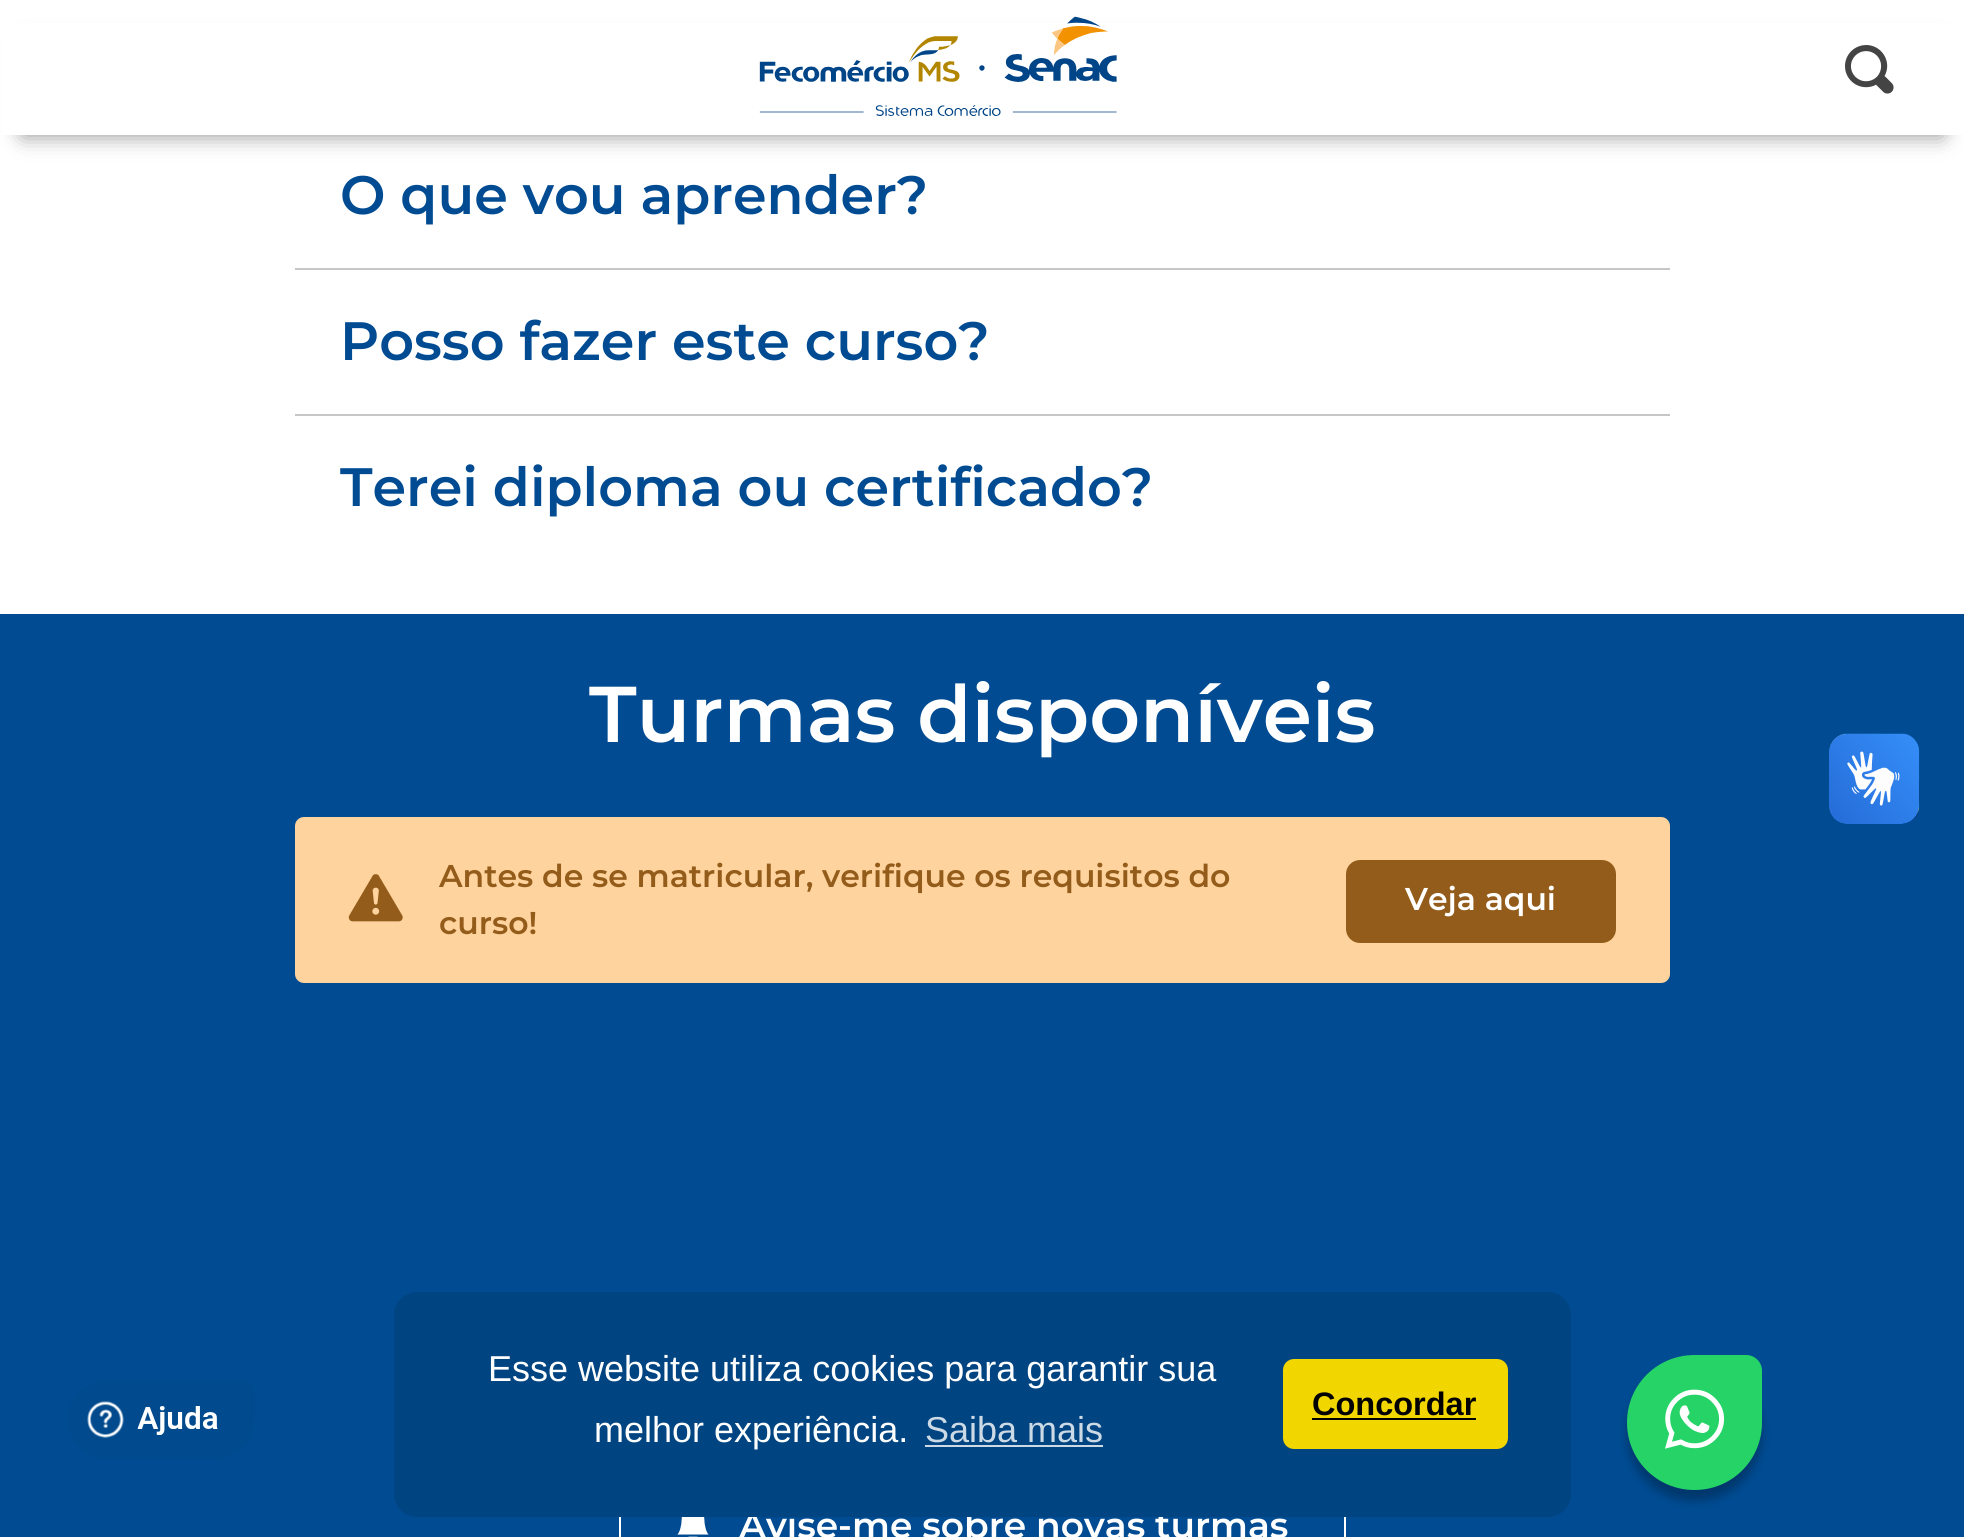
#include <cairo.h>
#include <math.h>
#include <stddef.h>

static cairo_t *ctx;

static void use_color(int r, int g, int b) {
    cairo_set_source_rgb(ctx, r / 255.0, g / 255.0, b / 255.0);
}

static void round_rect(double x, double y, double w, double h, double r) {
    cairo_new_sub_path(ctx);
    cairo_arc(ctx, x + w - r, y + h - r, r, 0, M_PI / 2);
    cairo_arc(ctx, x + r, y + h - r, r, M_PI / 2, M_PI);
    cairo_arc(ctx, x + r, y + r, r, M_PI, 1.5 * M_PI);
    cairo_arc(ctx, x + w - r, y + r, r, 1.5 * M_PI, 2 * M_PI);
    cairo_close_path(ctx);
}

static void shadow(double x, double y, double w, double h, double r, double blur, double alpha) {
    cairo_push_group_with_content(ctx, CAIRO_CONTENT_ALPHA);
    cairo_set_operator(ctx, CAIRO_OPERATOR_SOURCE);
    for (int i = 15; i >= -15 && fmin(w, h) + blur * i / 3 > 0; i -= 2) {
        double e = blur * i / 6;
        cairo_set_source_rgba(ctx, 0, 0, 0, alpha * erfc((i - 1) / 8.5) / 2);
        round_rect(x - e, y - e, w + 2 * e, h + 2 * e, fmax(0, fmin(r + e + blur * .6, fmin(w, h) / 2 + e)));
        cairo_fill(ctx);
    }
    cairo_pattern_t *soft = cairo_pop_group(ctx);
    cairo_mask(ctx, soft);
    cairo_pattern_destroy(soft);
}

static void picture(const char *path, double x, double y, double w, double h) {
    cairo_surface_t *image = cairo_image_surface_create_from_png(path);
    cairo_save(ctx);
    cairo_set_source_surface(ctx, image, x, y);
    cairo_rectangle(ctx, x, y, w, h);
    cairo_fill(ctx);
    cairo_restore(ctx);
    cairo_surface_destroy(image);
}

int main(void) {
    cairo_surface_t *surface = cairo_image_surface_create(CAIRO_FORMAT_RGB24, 1964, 1537);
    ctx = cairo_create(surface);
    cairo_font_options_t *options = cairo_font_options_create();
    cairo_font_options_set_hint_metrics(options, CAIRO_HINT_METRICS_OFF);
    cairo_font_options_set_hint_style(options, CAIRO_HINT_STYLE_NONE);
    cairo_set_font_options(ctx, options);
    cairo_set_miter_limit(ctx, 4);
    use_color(255, 255, 255);
    cairo_paint(ctx);
    use_color(0, 0, 0);
    shadow(23, 45, 1919, 90, 0, 11, 0.45);
    use_color(255, 255, 255);
    cairo_rectangle(ctx, 1, 23, 1963, 112);
    cairo_fill(ctx);
    picture("img1.png", 759, 16, 358, 100);
    picture("img2.png", 1845, 45, 49, 49);
    use_color(199, 199, 199);
    cairo_rectangle(ctx, 295, 268, 1375, 2);
    cairo_fill(ctx);
    cairo_select_font_face(ctx, "Montserrat SemiBold", CAIRO_FONT_SLANT_NORMAL, CAIRO_FONT_WEIGHT_NORMAL);
    cairo_set_font_size(ctx, 54);
    use_color(0, 75, 146);
    cairo_move_to(ctx, 340, 214);
    cairo_show_text(ctx, "O que vou aprender?");
    use_color(199, 199, 199);
    cairo_rectangle(ctx, 295, 414, 1375, 2);
    cairo_fill(ctx);
    use_color(0, 75, 146);
    cairo_move_to(ctx, 340, 360);
    cairo_show_text(ctx, "Posso fazer este curso?");
    cairo_move_to(ctx, 340, 506);
    cairo_show_text(ctx, "Terei diploma ou certificado?");
    cairo_rectangle(ctx, 0, 614, 1964, 923);
    cairo_fill(ctx);
    cairo_set_font_size(ctx, 79);
    use_color(255, 255, 255);
    cairo_move_to(ctx, 589, 742);
    cairo_show_text(ctx, "Turmas disponíveis");
    use_color(255, 211, 157);
    round_rect(295, 817, 1375, 166, 9);
    cairo_fill(ctx);
    picture("img3.png", 348, 874, 55, 48);
    cairo_set_font_size(ctx, 31.5);
    use_color(148, 92, 26);
    cairo_move_to(ctx, 439, 887);
    cairo_show_text(ctx, "Antes de se matricular, verifique os requisitos do");
    cairo_move_to(ctx, 439, 934);
    cairo_show_text(ctx, "curso!");
    round_rect(1346, 860, 270, 83, 14);
    cairo_fill(ctx);
    use_color(255, 255, 255);
    cairo_move_to(ctx, 1405, 910);
    cairo_show_text(ctx, "Veja aqui");
    cairo_rectangle(ctx, 620, 1466, 725, 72);
    cairo_stroke(ctx);
    picture("img4.png", 677, 1517, 32, 20);
    cairo_set_font_size(ctx, 36);
    cairo_move_to(ctx, 739, 1538);
    cairo_show_text(ctx, "Avise-me sobre novas turmas");
    use_color(0, 0, 0);
    shadow(1627, 1366, 135, 135, 67.5, 4.5, 0.26);
    use_color(37, 211, 102);
    cairo_new_path(ctx);
    cairo_move_to(ctx, 1694.5, 1355);
    cairo_line_to(ctx, 1746, 1355);
    cairo_curve_to(ctx, 1755, 1355, 1762, 1362, 1762, 1371);
    cairo_line_to(ctx, 1762, 1422.5);
    cairo_curve_to(ctx, 1762, 1460, 1732, 1490, 1694.5, 1490);
    cairo_curve_to(ctx, 1657, 1490, 1627, 1460, 1627, 1422.5);
    cairo_curve_to(ctx, 1627, 1385, 1657, 1355, 1694.5, 1355);
    cairo_close_path(ctx);
    cairo_fill(ctx);
    picture("img5.png", 1665, 1389, 60, 60);
    picture("img6.png", 1829, 733, 91, 91);
    picture("img7.png", 1829, 734, 90, 90);
    picture("img8.png", 68, 1382, 186, 76);
    use_color(0, 68, 129);
    round_rect(394, 1292, 1177, 225, 23);
    cairo_fill(ctx);
    cairo_select_font_face(ctx, "Liberation Sans", CAIRO_FONT_SLANT_NORMAL, CAIRO_FONT_WEIGHT_NORMAL);
    use_color(255, 255, 255);
    cairo_move_to(ctx, 488, 1381);
    cairo_show_text(ctx, "Esse website utiliza cookies para garantir sua");
    cairo_move_to(ctx, 594, 1442);
    cairo_show_text(ctx, "melhor experiência.");
    use_color(204, 218, 230);
    cairo_move_to(ctx, 925, 1442);
    cairo_show_text(ctx, "Saiba mais");
    cairo_rectangle(ctx, 925, 1445, 178, 2);
    cairo_fill(ctx);
    use_color(241, 214, 0);
    round_rect(1283, 1359, 225, 90, 11);
    cairo_fill(ctx);
    cairo_select_font_face(ctx, "Liberation Sans", CAIRO_FONT_SLANT_NORMAL, CAIRO_FONT_WEIGHT_BOLD);
    cairo_set_font_size(ctx, 32.5);
    use_color(0, 0, 0);
    cairo_move_to(ctx, 1312, 1415);
    cairo_show_text(ctx, "Concordar");
    cairo_rectangle(ctx, 1312, 1418, 164, 2);
    cairo_fill(ctx);
    cairo_surface_write_to_png(surface, "result.png");
    cairo_font_options_destroy(options);
    cairo_destroy(ctx);
    cairo_surface_destroy(surface);
    return 0;
}
